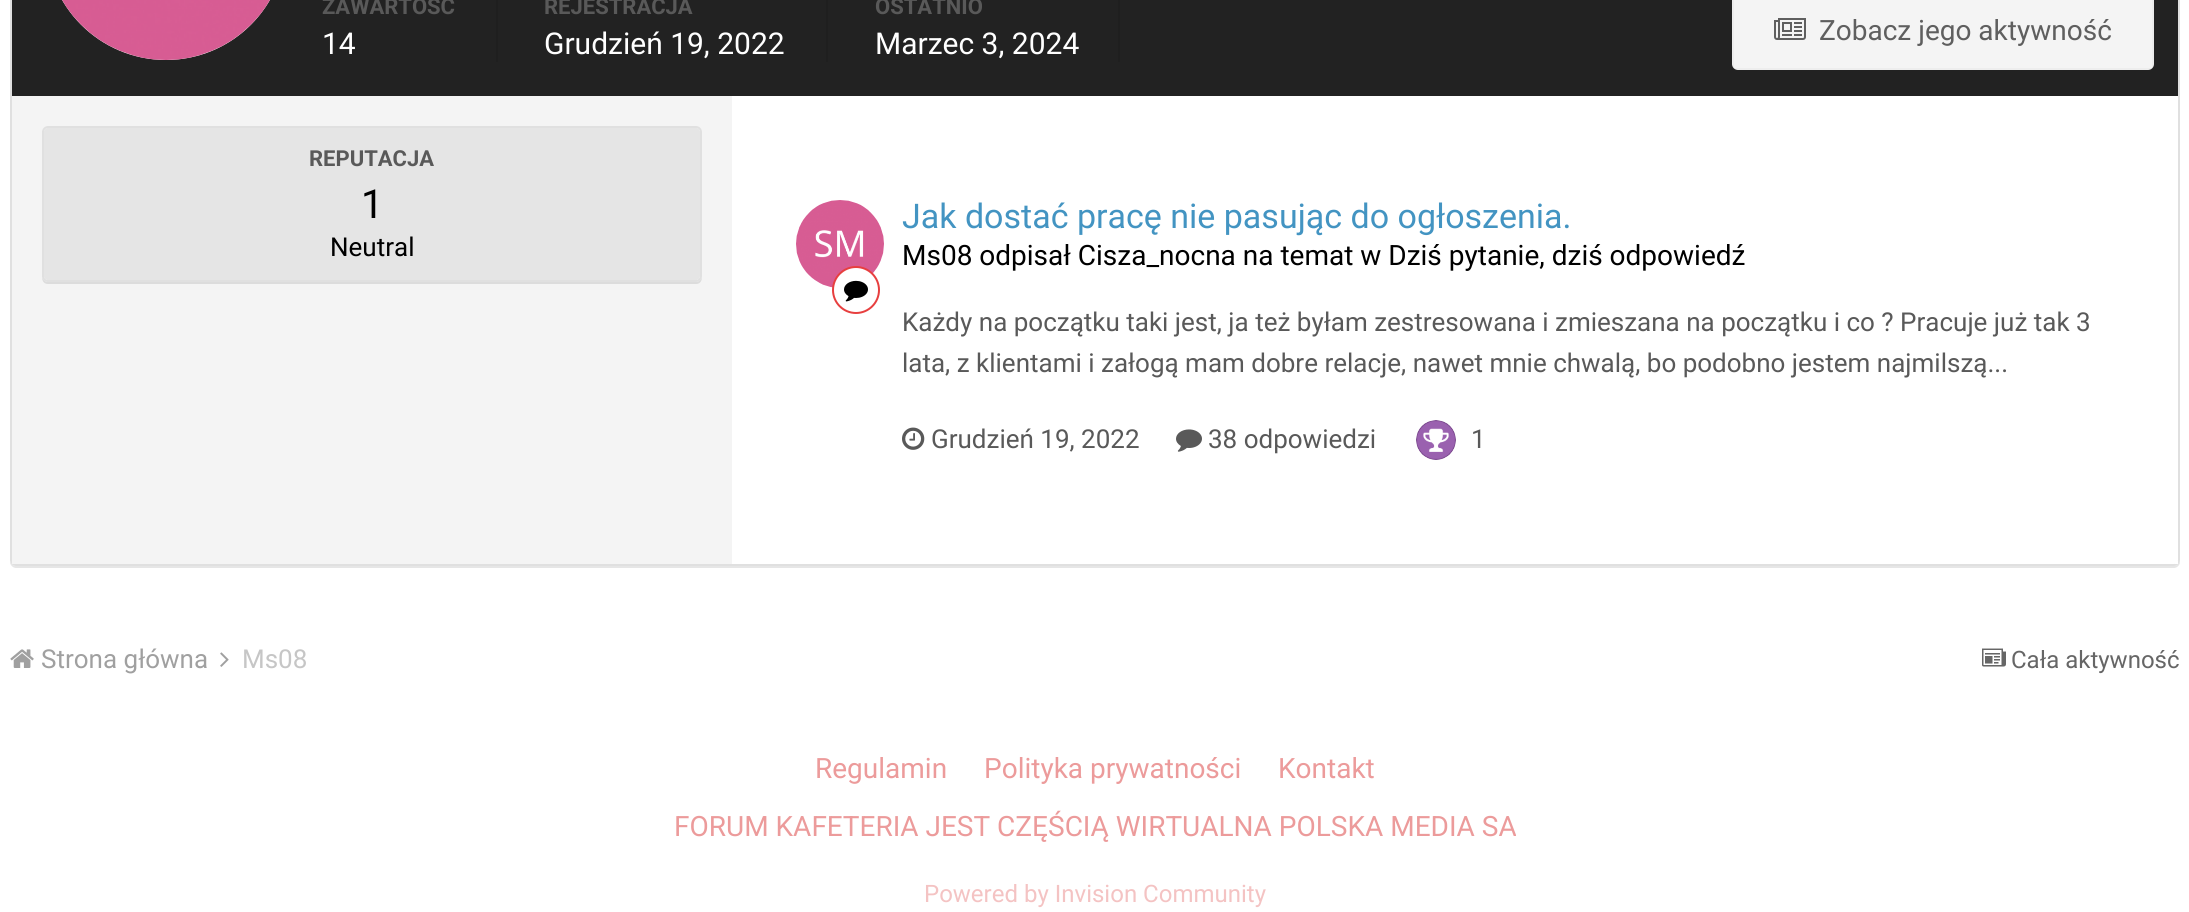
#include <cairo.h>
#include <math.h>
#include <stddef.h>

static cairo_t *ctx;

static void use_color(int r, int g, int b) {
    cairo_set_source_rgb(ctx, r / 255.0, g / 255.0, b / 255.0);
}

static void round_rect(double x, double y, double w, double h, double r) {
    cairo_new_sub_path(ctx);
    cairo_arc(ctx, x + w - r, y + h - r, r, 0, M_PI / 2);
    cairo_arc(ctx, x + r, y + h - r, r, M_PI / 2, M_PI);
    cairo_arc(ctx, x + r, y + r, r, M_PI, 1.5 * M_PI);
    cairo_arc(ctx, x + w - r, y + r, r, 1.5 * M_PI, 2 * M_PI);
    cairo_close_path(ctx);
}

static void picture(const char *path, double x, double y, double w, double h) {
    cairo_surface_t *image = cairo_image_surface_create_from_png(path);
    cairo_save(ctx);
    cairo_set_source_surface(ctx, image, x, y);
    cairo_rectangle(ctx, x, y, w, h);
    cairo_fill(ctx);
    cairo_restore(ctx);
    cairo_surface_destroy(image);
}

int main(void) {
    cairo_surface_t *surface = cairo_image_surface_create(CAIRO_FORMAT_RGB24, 2189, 912);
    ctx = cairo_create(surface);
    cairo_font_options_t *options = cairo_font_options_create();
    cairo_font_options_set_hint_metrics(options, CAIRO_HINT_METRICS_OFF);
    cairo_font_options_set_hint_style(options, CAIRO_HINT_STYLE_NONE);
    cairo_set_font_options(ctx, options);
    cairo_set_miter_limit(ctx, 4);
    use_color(255, 255, 255);
    cairo_paint(ctx);
    use_color(230, 230, 230);
    cairo_new_path(ctx);
    cairo_move_to(ctx, 10, 560);
    cairo_line_to(ctx, 10, 562);
    cairo_curve_to(ctx, 10, 565, 13, 568, 16, 568);
    cairo_line_to(ctx, 2174, 568);
    cairo_curve_to(ctx, 2177, 568, 2180, 565, 2180, 562);
    cairo_line_to(ctx, 2180, 560);
    cairo_curve_to(ctx, 2180, 563, 2177, 566, 2174, 566);
    cairo_line_to(ctx, 16, 566);
    cairo_curve_to(ctx, 13, 566, 10, 563, 10, 560);
    cairo_close_path(ctx);
    cairo_fill(ctx);
    round_rect(11, -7, 2168, 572, 5);
    use_color(224, 224, 224);
    cairo_stroke(ctx);
    use_color(34, 34, 34);
    cairo_rectangle(ctx, 12, 0, 2166, 96);
    cairo_fill(ctx);
    use_color(255, 255, 255);
    round_rect(46, -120, 240, 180, 120);
    cairo_fill(ctx);
    picture("img1.png", 62, 0, 208, 60);
    use_color(31, 31, 31);
    cairo_rectangle(ctx, 496, 0, 2, 62);
    cairo_fill(ctx);
    cairo_select_font_face(ctx, "Roboto", CAIRO_FONT_SLANT_NORMAL, CAIRO_FONT_WEIGHT_BOLD);
    cairo_set_font_size(ctx, 22);
    use_color(89, 89, 89);
    cairo_move_to(ctx, 322, 14);
    cairo_show_text(ctx, "ZAWARTOŚĆ");
    cairo_select_font_face(ctx, "Roboto", CAIRO_FONT_SLANT_NORMAL, CAIRO_FONT_WEIGHT_NORMAL);
    cairo_set_font_size(ctx, 30);
    use_color(255, 255, 255);
    cairo_move_to(ctx, 322, 54);
    cairo_show_text(ctx, "14");
    use_color(31, 31, 31);
    cairo_rectangle(ctx, 826, 0, 2, 62);
    cairo_fill(ctx);
    cairo_select_font_face(ctx, "Roboto", CAIRO_FONT_SLANT_NORMAL, CAIRO_FONT_WEIGHT_BOLD);
    cairo_set_font_size(ctx, 22);
    use_color(89, 89, 89);
    cairo_move_to(ctx, 544, 14);
    cairo_show_text(ctx, "REJESTRACJA");
    cairo_select_font_face(ctx, "Roboto", CAIRO_FONT_SLANT_NORMAL, CAIRO_FONT_WEIGHT_NORMAL);
    cairo_set_font_size(ctx, 30);
    use_color(255, 255, 255);
    cairo_move_to(ctx, 544, 54);
    cairo_show_text(ctx, "Grudzień 19, 2022");
    use_color(31, 31, 31);
    cairo_rectangle(ctx, 1118, 0, 2, 62);
    cairo_fill(ctx);
    cairo_select_font_face(ctx, "Roboto", CAIRO_FONT_SLANT_NORMAL, CAIRO_FONT_WEIGHT_BOLD);
    cairo_set_font_size(ctx, 22);
    use_color(89, 89, 89);
    cairo_move_to(ctx, 875, 14);
    cairo_show_text(ctx, "OSTATNIO");
    cairo_select_font_face(ctx, "Roboto", CAIRO_FONT_SLANT_NORMAL, CAIRO_FONT_WEIGHT_NORMAL);
    cairo_set_font_size(ctx, 30);
    use_color(255, 255, 255);
    cairo_move_to(ctx, 875, 54);
    cairo_show_text(ctx, "Marzec 3, 2024");
    use_color(244, 244, 244);
    round_rect(1732, -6, 422, 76, 6);
    cairo_fill(ctx);
    cairo_rectangle(ctx, 1733, -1, 420, 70);
    cairo_set_source_rgba(ctx, 0, 0, 0, 0.03);
    cairo_stroke(ctx);
    picture("img2.png", 1774, 18, 32, 22);
    cairo_set_font_size(ctx, 28);
    use_color(95, 95, 95);
    cairo_move_to(ctx, 1819, 40);
    cairo_show_text(ctx, "Zobacz jego aktywność");
    use_color(244, 244, 244);
    cairo_rectangle(ctx, 12, 96, 720, 468);
    cairo_fill(ctx);
    use_color(220, 220, 220);
    cairo_new_path(ctx);
    cairo_move_to(ctx, 42, 276);
    cairo_curve_to(ctx, 42, 280, 43, 284, 48, 284);
    cairo_line_to(ctx, 696, 284);
    cairo_curve_to(ctx, 701, 284, 702, 280, 702, 276);
    cairo_curve_to(ctx, 702, 279, 699, 282, 696, 282);
    cairo_line_to(ctx, 48, 282);
    cairo_curve_to(ctx, 45, 282, 42, 279, 42, 276);
    cairo_close_path(ctx);
    cairo_fill(ctx);
    round_rect(43, 127, 658, 154, 5);
    use_color(224, 224, 224);
    cairo_stroke(ctx);
    use_color(229, 229, 229);
    round_rect(44, 128, 656, 152, 4);
    cairo_fill(ctx);
    cairo_select_font_face(ctx, "Roboto", CAIRO_FONT_SLANT_NORMAL, CAIRO_FONT_WEIGHT_BOLD);
    cairo_set_font_size(ctx, 22);
    use_color(89, 89, 89);
    cairo_move_to(ctx, 309, 166);
    cairo_show_text(ctx, "REPUTACJA");
    cairo_select_font_face(ctx, "Roboto", CAIRO_FONT_SLANT_NORMAL, CAIRO_FONT_WEIGHT_NORMAL);
    cairo_set_font_size(ctx, 40);
    use_color(0, 0, 0);
    cairo_move_to(ctx, 361, 218);
    cairo_show_text(ctx, "1");
    cairo_set_font_size(ctx, 26);
    cairo_move_to(ctx, 330, 256);
    cairo_show_text(ctx, "Neutral");
    use_color(255, 255, 255);
    cairo_rectangle(ctx, 2175, 561, 3, 3);
    cairo_fill(ctx);
    picture("img3.png", 796, 200, 88, 88);
    cairo_set_font_size(ctx, 34);
    use_color(67, 148, 194);
    cairo_move_to(ctx, 902, 228);
    cairo_show_text(ctx, "Jak dostać pracę nie pasując do ogłoszenia.");
    cairo_set_font_size(ctx, 28);
    use_color(0, 0, 0);
    cairo_move_to(ctx, 902, 265);
    cairo_show_text(ctx, "Ms08 odpisał Cisza_nocna na temat w Dziś pytanie, dziś odpowiedź");
    use_color(255, 255, 255);
    cairo_new_path(ctx);
    cairo_arc(ctx, 856, 290, 23, 0, 2 * M_PI);
    cairo_fill_preserve(ctx);
    use_color(231, 63, 63);
    cairo_stroke(ctx);
    picture("img4.png", 844, 280, 24, 22);
    cairo_set_font_size(ctx, 26);
    use_color(89, 89, 89);
    cairo_move_to(ctx, 902, 331);
    cairo_show_text(ctx, "Każdy na początku taki jest, ja też byłam zestresowana i zmieszana na początku i co ? Pracuje już tak 3");
    cairo_move_to(ctx, 902, 372);
    cairo_show_text(ctx, "lata, z klientami i załogą mam dobre relacje, nawet mnie chwalą, bo podobno jestem najmilszą...");
    picture("img5.png", 902, 427, 23, 23);
    cairo_move_to(ctx, 931, 448);
    cairo_show_text(ctx, "Grudzień 19, 2022");
    picture("img6.png", 1176, 429, 26, 23);
    cairo_move_to(ctx, 1208, 448);
    cairo_show_text(ctx, "38 odpowiedzi");
    picture("img7.png", 1416, 420, 40, 40);
    cairo_move_to(ctx, 1471, 448);
    cairo_show_text(ctx, "1");
    picture("img8.png", 10, 649, 24, 19);
    use_color(160, 160, 160);
    cairo_move_to(ctx, 41, 668);
    cairo_show_text(ctx, "Strona główna");
    picture("img9.png", 220, 652, 9, 15);
    use_color(198, 198, 198);
    cairo_move_to(ctx, 242, 668);
    cairo_show_text(ctx, "Ms08");
    picture("img10.png", 1982, 648, 24, 19);
    cairo_set_font_size(ctx, 24);
    use_color(102, 102, 102);
    cairo_move_to(ctx, 2011, 668);
    cairo_show_text(ctx, "Cała aktywność");
    cairo_set_font_size(ctx, 28);
    use_color(236, 155, 155);
    cairo_move_to(ctx, 815, 778);
    cairo_show_text(ctx, "Regulamin");
    cairo_move_to(ctx, 984, 778);
    cairo_show_text(ctx, "Polityka prywatności");
    cairo_move_to(ctx, 1278, 778);
    cairo_show_text(ctx, "Kontakt");
    cairo_move_to(ctx, 674, 836);
    cairo_show_text(ctx, "FORUM KAFETERIA JEST CZĘŚCIĄ WIRTUALNA POLSKA MEDIA SA");
    cairo_set_font_size(ctx, 24);
    use_color(244, 195, 195);
    cairo_move_to(ctx, 924, 902);
    cairo_show_text(ctx, "Powered by Invision Community");
    cairo_surface_write_to_png(surface, "result.png");
    cairo_font_options_destroy(options);
    cairo_destroy(ctx);
    cairo_surface_destroy(surface);
    return 0;
}
